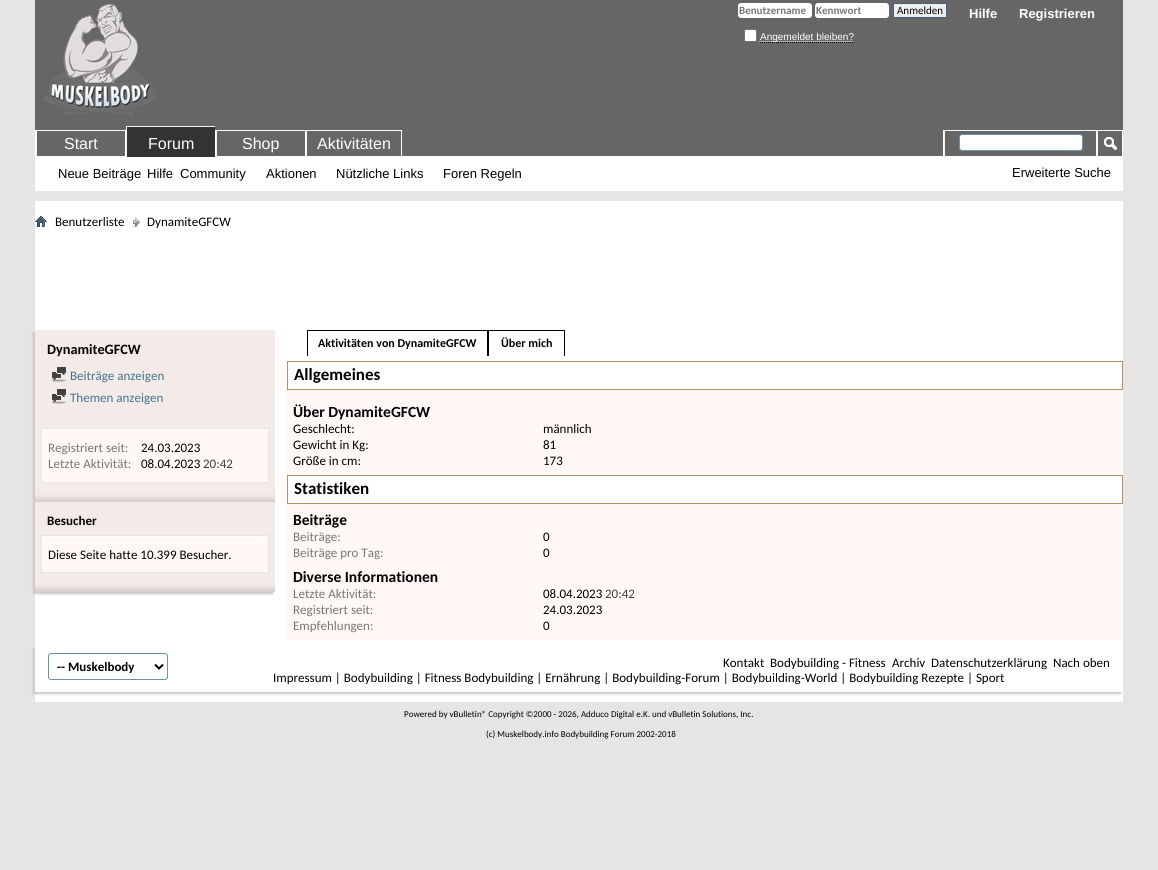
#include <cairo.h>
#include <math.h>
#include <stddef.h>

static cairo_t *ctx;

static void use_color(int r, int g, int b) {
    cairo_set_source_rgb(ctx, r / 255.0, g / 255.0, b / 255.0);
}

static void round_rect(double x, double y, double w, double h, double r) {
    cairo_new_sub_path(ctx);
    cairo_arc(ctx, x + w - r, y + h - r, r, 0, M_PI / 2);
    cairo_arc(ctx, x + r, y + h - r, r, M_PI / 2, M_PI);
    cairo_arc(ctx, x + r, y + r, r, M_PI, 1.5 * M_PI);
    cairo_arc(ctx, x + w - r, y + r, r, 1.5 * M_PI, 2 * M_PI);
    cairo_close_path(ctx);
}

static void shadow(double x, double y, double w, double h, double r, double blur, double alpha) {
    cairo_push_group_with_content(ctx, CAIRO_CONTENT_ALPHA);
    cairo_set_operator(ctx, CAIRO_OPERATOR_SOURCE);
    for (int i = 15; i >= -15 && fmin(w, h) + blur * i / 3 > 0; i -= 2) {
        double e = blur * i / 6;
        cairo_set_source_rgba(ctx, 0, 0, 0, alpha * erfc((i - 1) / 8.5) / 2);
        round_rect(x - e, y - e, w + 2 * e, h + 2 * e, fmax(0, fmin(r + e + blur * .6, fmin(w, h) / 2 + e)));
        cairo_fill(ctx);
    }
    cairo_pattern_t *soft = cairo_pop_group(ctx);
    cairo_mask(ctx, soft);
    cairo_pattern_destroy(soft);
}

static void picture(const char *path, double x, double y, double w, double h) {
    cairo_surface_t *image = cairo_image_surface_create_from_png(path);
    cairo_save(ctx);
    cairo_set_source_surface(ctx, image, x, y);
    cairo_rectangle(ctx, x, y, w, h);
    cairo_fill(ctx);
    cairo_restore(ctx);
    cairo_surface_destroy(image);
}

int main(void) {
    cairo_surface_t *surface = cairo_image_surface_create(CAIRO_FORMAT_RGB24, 1158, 870);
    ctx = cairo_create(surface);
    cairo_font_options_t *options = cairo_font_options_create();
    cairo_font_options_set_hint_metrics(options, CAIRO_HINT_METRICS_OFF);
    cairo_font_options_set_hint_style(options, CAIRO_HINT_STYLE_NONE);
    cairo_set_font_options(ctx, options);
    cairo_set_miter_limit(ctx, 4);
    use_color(229, 229, 229);
    cairo_paint(ctx);
    use_color(102, 102, 102);
    cairo_rectangle(ctx, 35, 0, 1088, 130);
    cairo_fill(ctx);
    picture("img1.png", 42, 3, 116, 113);
    use_color(255, 255, 255);
    round_rect(738, 3, 74, 15, 3);
    cairo_fill(ctx);
    cairo_select_font_face(ctx, "Carlito", CAIRO_FONT_SLANT_NORMAL, CAIRO_FONT_WEIGHT_BOLD);
    cairo_set_font_size(ctx, 11);
    use_color(119, 119, 119);
    cairo_move_to(ctx, 739, 14);
    cairo_show_text(ctx, "Benutzername");
    use_color(255, 255, 255);
    round_rect(815, 3, 74, 15, 3);
    cairo_fill(ctx);
    use_color(119, 119, 119);
    cairo_move_to(ctx, 816, 14);
    cairo_show_text(ctx, "Kennwort");
    use_color(239, 239, 239);
    cairo_rectangle(ctx, 893.5, 3.5, 53, 14);
    cairo_fill_preserve(ctx);
    use_color(65, 93, 141);
    cairo_set_line_width(ctx, 1);
    cairo_stroke(ctx);
    cairo_select_font_face(ctx, "Carlito", CAIRO_FONT_SLANT_NORMAL, CAIRO_FONT_WEIGHT_NORMAL);
    use_color(0, 0, 0);
    cairo_move_to(ctx, 897, 14);
    cairo_show_text(ctx, "Anmelden");
    use_color(255, 255, 255);
    round_rect(744.5, 29.5, 12, 12, 1.5);
    cairo_fill_preserve(ctx);
    use_color(118, 118, 118);
    cairo_stroke(ctx);
    cairo_new_path(ctx);
    cairo_move_to(ctx, 760, 42.5);
    cairo_line_to(ctx, 853, 42.5);
    use_color(0, 0, 0);
    cairo_set_dash(ctx, (double[]){1, 1}, 2, 0);
    cairo_stroke(ctx);
    cairo_new_path(ctx);
    cairo_move_to(ctx, 759.5, 41.5);
    cairo_line_to(ctx, 853.5, 41.5);
    use_color(255, 255, 255);
    cairo_stroke(ctx);
    cairo_select_font_face(ctx, "Liberation Sans", CAIRO_FONT_SLANT_NORMAL, CAIRO_FONT_WEIGHT_NORMAL);
    cairo_set_font_size(ctx, 10);
    cairo_move_to(ctx, 760, 40);
    cairo_show_text(ctx, "Angemeldet bleiben?");
    cairo_select_font_face(ctx, "Liberation Sans", CAIRO_FONT_SLANT_NORMAL, CAIRO_FONT_WEIGHT_BOLD);
    cairo_set_font_size(ctx, 13);
    cairo_move_to(ctx, 969, 18);
    cairo_show_text(ctx, "Hilfe");
    cairo_move_to(ctx, 1019, 18);
    cairo_show_text(ctx, "Registrieren");
    cairo_rectangle(ctx, 35, 157, 1088, 34);
    cairo_fill(ctx);
    use_color(102, 102, 102);
    cairo_rectangle(ctx, 402, 130, 720, 26);
    cairo_fill(ctx);
    use_color(255, 255, 255);
    cairo_rectangle(ctx, 125, 130, 1, 27);
    cairo_fill(ctx);
    cairo_rectangle(ctx, 35, 130, 1, 27);
    cairo_fill(ctx);
    use_color(102, 102, 102);
    cairo_rectangle(ctx, 37, 131, 88, 25);
    cairo_fill(ctx);
    use_color(246, 246, 246);
    cairo_rectangle(ctx, 36, 130, 89, 1);
    cairo_fill(ctx);
    cairo_rectangle(ctx, 36, 130, 1, 27);
    cairo_fill(ctx);
    cairo_select_font_face(ctx, "Liberation Sans", CAIRO_FONT_SLANT_NORMAL, CAIRO_FONT_WEIGHT_NORMAL);
    cairo_set_font_size(ctx, 16);
    use_color(255, 255, 255);
    cairo_move_to(ctx, 64, 149);
    cairo_show_text(ctx, "Start");
    cairo_rectangle(ctx, 215, 130, 1, 26);
    cairo_fill(ctx);
    cairo_rectangle(ctx, 305, 130, 1, 27);
    cairo_fill(ctx);
    use_color(246, 246, 246);
    cairo_rectangle(ctx, 216, 130, 89, 1);
    cairo_fill(ctx);
    cairo_rectangle(ctx, 216, 130, 1, 27);
    cairo_fill(ctx);
    use_color(255, 255, 255);
    cairo_rectangle(ctx, 401, 130, 1, 27);
    cairo_fill(ctx);
    use_color(246, 246, 246);
    cairo_rectangle(ctx, 306, 130, 95, 1);
    cairo_fill(ctx);
    cairo_rectangle(ctx, 306, 130, 1, 27);
    cairo_fill(ctx);
    use_color(255, 255, 255);
    cairo_rectangle(ctx, 35, 156, 1088, 1);
    cairo_fill(ctx);
    use_color(51, 51, 51);
    cairo_rectangle(ctx, 127, 127, 88, 30);
    cairo_fill(ctx);
    use_color(246, 246, 246);
    cairo_rectangle(ctx, 126, 126, 89, 1);
    cairo_fill(ctx);
    cairo_rectangle(ctx, 126, 126, 1, 31);
    cairo_fill(ctx);
    use_color(255, 255, 255);
    cairo_move_to(ctx, 148, 149);
    cairo_show_text(ctx, "Forum");
    use_color(102, 102, 102);
    cairo_rectangle(ctx, 217, 131, 88, 25);
    cairo_fill(ctx);
    use_color(255, 255, 255);
    cairo_move_to(ctx, 242, 149);
    cairo_show_text(ctx, "Shop");
    use_color(102, 102, 102);
    cairo_rectangle(ctx, 307, 131, 94, 25);
    cairo_fill(ctx);
    use_color(255, 255, 255);
    cairo_move_to(ctx, 317, 149);
    cairo_show_text(ctx, "Aktivitäten");
    cairo_set_font_size(ctx, 13);
    use_color(0, 0, 0);
    cairo_move_to(ctx, 58, 178);
    cairo_show_text(ctx, "Neue Beiträge");
    cairo_move_to(ctx, 147, 178);
    cairo_show_text(ctx, "Hilfe");
    cairo_move_to(ctx, 180, 178);
    cairo_show_text(ctx, "Community");
    cairo_move_to(ctx, 266, 178);
    cairo_show_text(ctx, "Aktionen");
    cairo_move_to(ctx, 336, 178);
    cairo_show_text(ctx, "Nützliche Links");
    cairo_move_to(ctx, 443, 178);
    cairo_show_text(ctx, "Foren Regeln");
    use_color(255, 255, 255);
    cairo_rectangle(ctx, 943, 130, 1, 26);
    cairo_fill(ctx);
    use_color(246, 246, 246);
    cairo_rectangle(ctx, 944, 130, 152, 1);
    cairo_fill(ctx);
    cairo_rectangle(ctx, 944, 130, 1, 26);
    cairo_fill(ctx);
    use_color(255, 255, 255);
    round_rect(959.5, 134.5, 123, 16, 2.5);
    cairo_fill_preserve(ctx);
    use_color(107, 145, 171);
    cairo_set_dash(ctx, NULL, 0, 0);
    cairo_stroke(ctx);
    use_color(255, 255, 255);
    cairo_rectangle(ctx, 1122, 130, 1, 26);
    cairo_fill(ctx);
    cairo_rectangle(ctx, 1096, 130, 1, 26);
    cairo_fill(ctx);
    use_color(246, 246, 246);
    cairo_rectangle(ctx, 1097, 130, 25, 1);
    cairo_fill(ctx);
    cairo_rectangle(ctx, 1097, 130, 1, 26);
    cairo_fill(ctx);
    picture("img2.png", 1104, 137, 13, 14);
    use_color(0, 0, 0);
    cairo_move_to(ctx, 1012, 177);
    cairo_show_text(ctx, "Erweiterte Suche");
    use_color(255, 255, 255);
    cairo_rectangle(ctx, 35, 201, 1088, 501);
    cairo_fill(ctx);
    picture("img3.png", 35, 216, 12, 11);
    picture("img4.png", 133, 217, 7, 10);
    cairo_select_font_face(ctx, "Carlito", CAIRO_FONT_SLANT_NORMAL, CAIRO_FONT_WEIGHT_NORMAL);
    use_color(0, 0, 0);
    cairo_move_to(ctx, 55, 226);
    cairo_show_text(ctx, "Benutzerliste");
    cairo_move_to(ctx, 147, 226);
    cairo_show_text(ctx, "DynamiteGFCW");
    use_color(200, 200, 200);
    shadow(33, 332, 240, 262, 0, 1, 1);
    use_color(244, 234, 232);
    cairo_rectangle(ctx, 35, 330, 240, 262);
    cairo_fill(ctx);
    cairo_select_font_face(ctx, "Carlito", CAIRO_FONT_SLANT_NORMAL, CAIRO_FONT_WEIGHT_BOLD);
    cairo_set_font_size(ctx, 14.25);
    use_color(0, 0, 0);
    cairo_move_to(ctx, 47, 354);
    cairo_show_text(ctx, "DynamiteGFCW");
    picture("img5.png", 51, 367, 15, 15);
    cairo_select_font_face(ctx, "Carlito", CAIRO_FONT_SLANT_NORMAL, CAIRO_FONT_WEIGHT_NORMAL);
    cairo_set_font_size(ctx, 13);
    use_color(65, 115, 148);
    cairo_move_to(ctx, 70, 380);
    cairo_show_text(ctx, "Beiträge anzeigen");
    picture("img5.png", 51, 389, 15, 15);
    cairo_move_to(ctx, 70, 402);
    cairo_show_text(ctx, "Themen anzeigen");
    use_color(255, 248, 246);
    cairo_rectangle(ctx, 42, 430, 226, 52);
    cairo_fill(ctx);
    cairo_rectangle(ctx, 41.5, 428.5, 227, 54);
    use_color(228, 228, 228);
    cairo_stroke(ctx);
    use_color(255, 255, 255);
    cairo_rectangle(ctx, 42, 429, 226, 1);
    cairo_fill(ctx);
    use_color(119, 119, 119);
    cairo_move_to(ctx, 48, 452);
    cairo_show_text(ctx, "Registriert seit:");
    use_color(0, 0, 0);
    cairo_move_to(ctx, 141, 452);
    cairo_show_text(ctx, "24.03.2023");
    use_color(119, 119, 119);
    cairo_move_to(ctx, 48, 468);
    cairo_show_text(ctx, "Letzte Aktivität:");
    use_color(0, 0, 0);
    cairo_move_to(ctx, 141, 468);
    cairo_show_text(ctx, "08.04.2023");
    use_color(62, 62, 62);
    cairo_move_to(ctx, 203, 468);
    cairo_show_text(ctx, "20:42");
    picture("img6.png", 35, 495, 240, 7);
    cairo_select_font_face(ctx, "Carlito", CAIRO_FONT_SLANT_NORMAL, CAIRO_FONT_WEIGHT_BOLD);
    use_color(0, 0, 0);
    cairo_move_to(ctx, 47, 525);
    cairo_show_text(ctx, "Besucher");
    use_color(255, 248, 246);
    cairo_rectangle(ctx, 42, 537, 226, 35);
    cairo_fill(ctx);
    cairo_rectangle(ctx, 41.5, 535.5, 227, 37);
    use_color(228, 228, 228);
    cairo_stroke(ctx);
    use_color(255, 255, 255);
    cairo_rectangle(ctx, 42, 536, 226, 1);
    cairo_fill(ctx);
    cairo_select_font_face(ctx, "Carlito", CAIRO_FONT_SLANT_NORMAL, CAIRO_FONT_WEIGHT_NORMAL);
    use_color(0, 0, 0);
    cairo_move_to(ctx, 48, 559);
    cairo_show_text(ctx, "Diese Seite hatte 10.399 Besucher.");
    picture("img6.png", 35, 585, 240, 7);
    cairo_rectangle(ctx, 307, 330, 258, 1);
    cairo_fill(ctx);
    cairo_rectangle(ctx, 487, 330, 2, 26);
    cairo_fill(ctx);
    cairo_rectangle(ctx, 307, 330, 1, 26);
    cairo_fill(ctx);
    cairo_select_font_face(ctx, "Carlito", CAIRO_FONT_SLANT_NORMAL, CAIRO_FONT_WEIGHT_BOLD);
    cairo_set_font_size(ctx, 12);
    cairo_move_to(ctx, 318, 347);
    cairo_show_text(ctx, "Aktivitäten von DynamiteGFCW");
    cairo_rectangle(ctx, 564, 330, 1, 26);
    cairo_fill(ctx);
    cairo_move_to(ctx, 501, 347);
    cairo_show_text(ctx, "Über mich");
    cairo_rectangle(ctx, 287.5, 361.5, 835, 28);
    use_color(183, 144, 103);
    cairo_stroke(ctx);
    cairo_set_font_size(ctx, 17);
    use_color(0, 0, 0);
    cairo_move_to(ctx, 294, 380);
    cairo_show_text(ctx, "Allgemeines");
    use_color(255, 248, 246);
    cairo_rectangle(ctx, 287, 390, 836, 85);
    cairo_fill(ctx);
    cairo_set_font_size(ctx, 15.5);
    use_color(0, 0, 0);
    cairo_move_to(ctx, 293, 417);
    cairo_show_text(ctx, "Über DynamiteGFCW");
    cairo_select_font_face(ctx, "Carlito", CAIRO_FONT_SLANT_NORMAL, CAIRO_FONT_WEIGHT_NORMAL);
    cairo_set_font_size(ctx, 13);
    cairo_move_to(ctx, 293, 433);
    cairo_show_text(ctx, "Geschlecht:");
    cairo_move_to(ctx, 543, 433);
    cairo_show_text(ctx, "männlich");
    cairo_move_to(ctx, 293, 449);
    cairo_show_text(ctx, "Gewicht in Kg:");
    cairo_move_to(ctx, 543, 449);
    cairo_show_text(ctx, "81");
    cairo_move_to(ctx, 293, 465);
    cairo_show_text(ctx, "Größe in cm:");
    cairo_move_to(ctx, 543, 465);
    cairo_show_text(ctx, "173");
    cairo_rectangle(ctx, 287.5, 475.5, 835, 28);
    use_color(183, 144, 103);
    cairo_stroke(ctx);
    cairo_select_font_face(ctx, "Carlito", CAIRO_FONT_SLANT_NORMAL, CAIRO_FONT_WEIGHT_BOLD);
    cairo_set_font_size(ctx, 17);
    use_color(0, 0, 0);
    cairo_move_to(ctx, 294, 494);
    cairo_show_text(ctx, "Statistiken");
    use_color(255, 248, 246);
    cairo_rectangle(ctx, 287, 504, 836, 136);
    cairo_fill(ctx);
    cairo_set_font_size(ctx, 15.5);
    use_color(0, 0, 0);
    cairo_move_to(ctx, 293, 525);
    cairo_show_text(ctx, "Beiträge");
    cairo_select_font_face(ctx, "Carlito", CAIRO_FONT_SLANT_NORMAL, CAIRO_FONT_WEIGHT_NORMAL);
    cairo_set_font_size(ctx, 13);
    use_color(119, 119, 119);
    cairo_move_to(ctx, 293, 541);
    cairo_show_text(ctx, "Beiträge:");
    use_color(0, 0, 0);
    cairo_move_to(ctx, 543, 541);
    cairo_show_text(ctx, "0");
    use_color(119, 119, 119);
    cairo_move_to(ctx, 293, 557);
    cairo_show_text(ctx, "Beiträge pro Tag:");
    use_color(0, 0, 0);
    cairo_move_to(ctx, 543, 557);
    cairo_show_text(ctx, "0");
    cairo_select_font_face(ctx, "Carlito", CAIRO_FONT_SLANT_NORMAL, CAIRO_FONT_WEIGHT_BOLD);
    cairo_set_font_size(ctx, 15.5);
    cairo_move_to(ctx, 293, 582);
    cairo_show_text(ctx, "Diverse Informationen");
    cairo_select_font_face(ctx, "Carlito", CAIRO_FONT_SLANT_NORMAL, CAIRO_FONT_WEIGHT_NORMAL);
    cairo_set_font_size(ctx, 13);
    use_color(119, 119, 119);
    cairo_move_to(ctx, 293, 598);
    cairo_show_text(ctx, "Letzte Aktivität:");
    use_color(0, 0, 0);
    cairo_move_to(ctx, 543, 598);
    cairo_show_text(ctx, "08.04.2023");
    use_color(62, 62, 62);
    cairo_move_to(ctx, 605, 598);
    cairo_show_text(ctx, "20:42");
    use_color(119, 119, 119);
    cairo_move_to(ctx, 293, 614);
    cairo_show_text(ctx, "Registriert seit:");
    use_color(0, 0, 0);
    cairo_move_to(ctx, 543, 614);
    cairo_show_text(ctx, "24.03.2023");
    use_color(119, 119, 119);
    cairo_move_to(ctx, 293, 630);
    cairo_show_text(ctx, "Empfehlungen:");
    use_color(0, 0, 0);
    cairo_move_to(ctx, 543, 630);
    cairo_show_text(ctx, "0");
    cairo_save(ctx);
    cairo_set_fill_rule(ctx, CAIRO_FILL_RULE_EVEN_ODD);
    cairo_new_path(ctx);
    cairo_move_to(ctx, 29, 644);
    cairo_line_to(ctx, 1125, 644);
    cairo_line_to(ctx, 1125, 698);
    cairo_line_to(ctx, 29, 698);
    cairo_close_path(ctx);
    cairo_move_to(ctx, 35, 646);
    cairo_line_to(ctx, 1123, 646);
    cairo_line_to(ctx, 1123, 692);
    cairo_line_to(ctx, 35, 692);
    cairo_close_path(ctx);
    cairo_clip(ctx);
    use_color(200, 200, 200);
    shadow(33, 648, 1088, 46, 0, 1, 1);
    cairo_restore(ctx);
    round_rect(48.5, 653.5, 119, 26, 2.5);
    use_color(107, 145, 171);
    cairo_stroke(ctx);
    cairo_new_path(ctx);
    cairo_move_to(ctx, 155, 664.5);
    cairo_line_to(ctx, 159, 668.5);
    cairo_line_to(ctx, 163, 664.5);
    use_color(0, 0, 0);
    cairo_set_line_width(ctx, 2);
    cairo_stroke(ctx);
    cairo_select_font_face(ctx, "Carlito", CAIRO_FONT_SLANT_NORMAL, CAIRO_FONT_WEIGHT_BOLD);
    cairo_move_to(ctx, 57, 671);
    cairo_show_text(ctx, "-- Muskelbody");
    cairo_select_font_face(ctx, "Carlito", CAIRO_FONT_SLANT_NORMAL, CAIRO_FONT_WEIGHT_NORMAL);
    cairo_move_to(ctx, 723, 667);
    cairo_show_text(ctx, "Kontakt");
    cairo_move_to(ctx, 770, 667);
    cairo_show_text(ctx, "Bodybuilding - Fitness");
    cairo_move_to(ctx, 892, 667);
    cairo_show_text(ctx, "Archiv");
    cairo_move_to(ctx, 931, 667);
    cairo_show_text(ctx, "Datenschutzerklärung");
    cairo_move_to(ctx, 1053, 667);
    cairo_show_text(ctx, "Nach oben");
    cairo_move_to(ctx, 273, 682);
    cairo_show_text(ctx, "Impressum | Bodybuilding | Fitness Bodybuilding | Ernährung | Bodybuilding-Forum | Bodybuilding-World | Bodybuilding Rezepte | Sport");
    cairo_set_font_size(ctx, 9);
    cairo_move_to(ctx, 404, 717);
    cairo_show_text(ctx, "Powered by vBulletin® Copyright ©2000 - 2026, Adduco Digital e.K. und vBulletin Solutions, Inc.");
    cairo_move_to(ctx, 486, 737);
    cairo_show_text(ctx, "(c) Muskelbody.info Bodybuilding Forum 2002-2018");
    cairo_surface_write_to_png(surface, "result.png");
    cairo_font_options_destroy(options);
    cairo_destroy(ctx);
    cairo_surface_destroy(surface);
    return 0;
}
